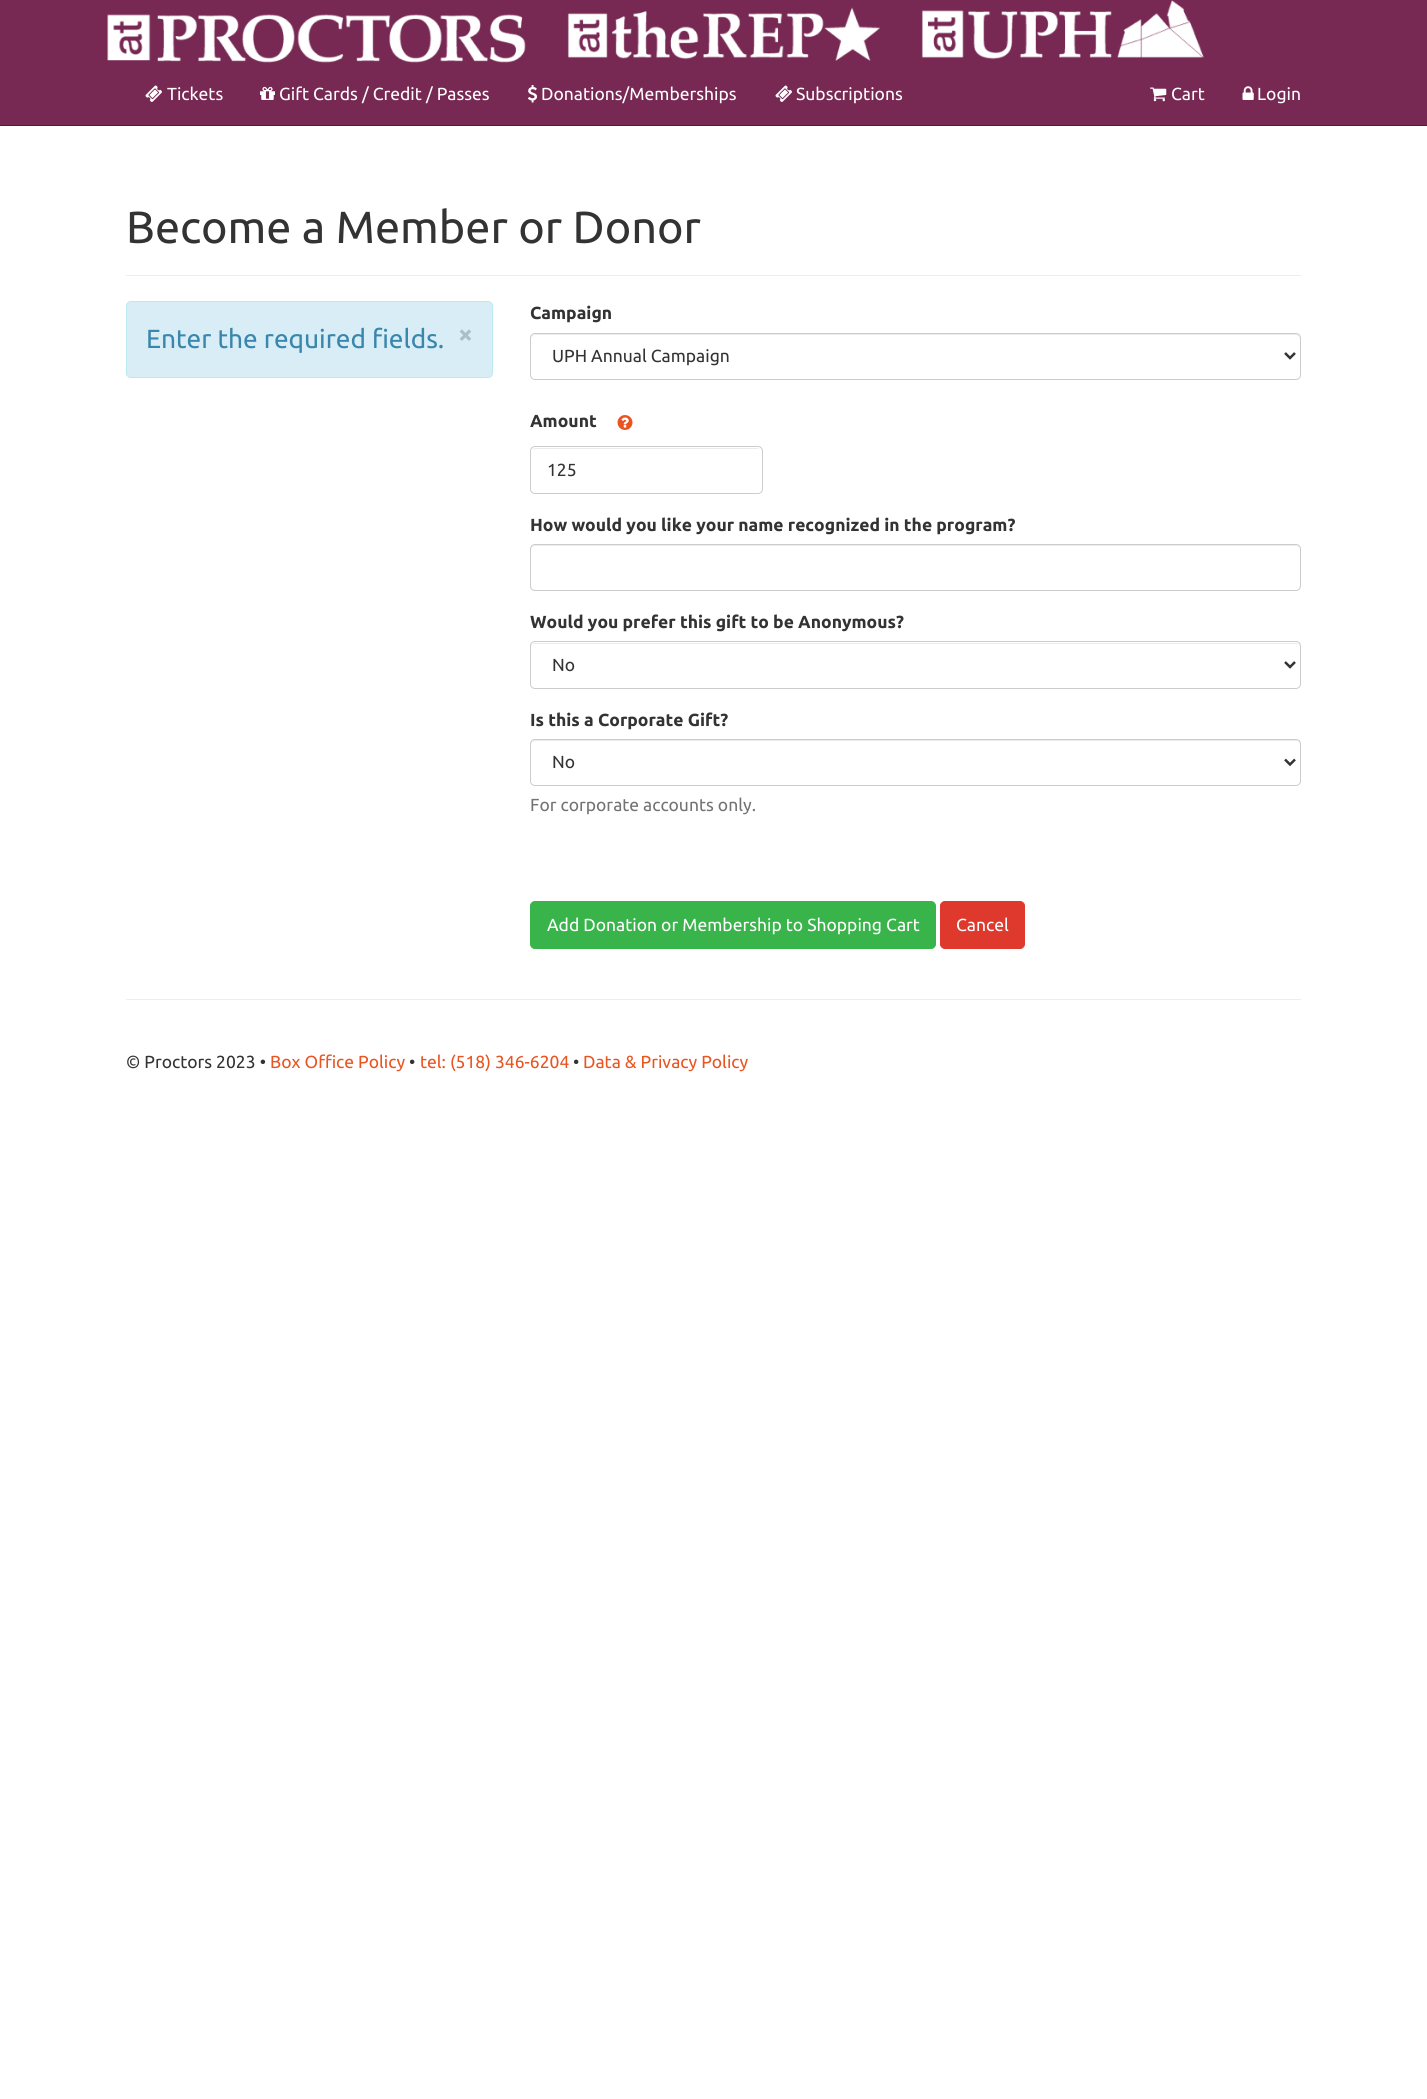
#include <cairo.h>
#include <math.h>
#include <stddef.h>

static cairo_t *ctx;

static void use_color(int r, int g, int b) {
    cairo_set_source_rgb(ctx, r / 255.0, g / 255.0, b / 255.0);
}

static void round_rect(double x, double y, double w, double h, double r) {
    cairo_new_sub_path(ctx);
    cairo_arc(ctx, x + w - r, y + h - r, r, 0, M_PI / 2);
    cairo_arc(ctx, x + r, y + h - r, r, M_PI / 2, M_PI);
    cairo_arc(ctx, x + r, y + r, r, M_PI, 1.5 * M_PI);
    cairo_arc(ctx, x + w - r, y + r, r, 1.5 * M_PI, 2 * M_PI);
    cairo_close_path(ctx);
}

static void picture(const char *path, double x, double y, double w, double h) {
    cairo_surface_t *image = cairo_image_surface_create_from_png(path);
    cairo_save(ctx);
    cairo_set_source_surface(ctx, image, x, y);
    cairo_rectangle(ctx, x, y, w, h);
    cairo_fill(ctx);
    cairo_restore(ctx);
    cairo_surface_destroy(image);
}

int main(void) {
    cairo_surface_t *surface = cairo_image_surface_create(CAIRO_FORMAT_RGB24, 1427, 2099);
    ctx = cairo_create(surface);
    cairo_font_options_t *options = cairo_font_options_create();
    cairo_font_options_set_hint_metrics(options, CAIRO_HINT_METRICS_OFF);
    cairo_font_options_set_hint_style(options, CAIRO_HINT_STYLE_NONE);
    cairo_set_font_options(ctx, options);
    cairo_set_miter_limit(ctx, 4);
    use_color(255, 255, 255);
    cairo_paint(ctx);
    use_color(119, 41, 83);
    cairo_rectangle(ctx, 0, 0, 1427, 125);
    cairo_fill(ctx);
    use_color(81, 28, 57);
    cairo_rectangle(ctx, 0, 125, 1427, 1);
    cairo_fill(ctx);
    picture("img1.png", 107, 0, 1097, 63);
    picture("img2.png", 145, 85, 17, 17);
    cairo_select_font_face(ctx, "Ubuntu", CAIRO_FONT_SLANT_NORMAL, CAIRO_FONT_WEIGHT_NORMAL);
    cairo_set_font_size(ctx, 17.5);
    use_color(255, 255, 255);
    cairo_move_to(ctx, 167, 100);
    cairo_show_text(ctx, "Tickets");
    picture("img3.png", 260, 86, 15, 14);
    cairo_move_to(ctx, 279, 100);
    cairo_show_text(ctx, "Gift Cards / Credit / Passes");
    picture("img4.png", 528, 85, 9, 18);
    cairo_move_to(ctx, 541, 100);
    cairo_show_text(ctx, "Donations/Memberships");
    picture("img2.png", 775, 85, 17, 17);
    cairo_move_to(ctx, 796, 100);
    cairo_show_text(ctx, "Subscriptions");
    picture("img5.png", 1150, 87, 17, 15);
    cairo_move_to(ctx, 1171, 100);
    cairo_show_text(ctx, "Cart");
    picture("img6.png", 1242, 86, 12, 14);
    cairo_move_to(ctx, 1257, 100);
    cairo_show_text(ctx, "Login");
    use_color(238, 238, 238);
    cairo_rectangle(ctx, 126, 275, 1175, 1);
    cairo_fill(ctx);
    cairo_set_font_size(ctx, 45);
    use_color(51, 51, 51);
    cairo_move_to(ctx, 126, 243);
    cairo_show_text(ctx, "Become a Member or Donor");
    use_color(217, 237, 247);
    round_rect(126.5, 301.5, 366, 76, 4.5);
    cairo_fill_preserve(ctx);
    use_color(188, 232, 241);
    cairo_set_line_width(ctx, 1);
    cairo_stroke(ctx);
    cairo_set_font_size(ctx, 26.25);
    use_color(58, 135, 173);
    cairo_move_to(ctx, 146, 348);
    cairo_show_text(ctx, "Enter the required fields.");
    cairo_select_font_face(ctx, "Ubuntu", CAIRO_FONT_SLANT_NORMAL, CAIRO_FONT_WEIGHT_BOLD);
    use_color(174, 190, 198);
    cairo_move_to(ctx, 458, 343);
    cairo_show_text(ctx, "×");
    cairo_set_font_size(ctx, 17.5);
    use_color(51, 51, 51);
    cairo_move_to(ctx, 530, 319);
    cairo_show_text(ctx, "Campaign");
    use_color(236, 236, 236);
    cairo_new_path(ctx);
    cairo_move_to(ctx, 535, 335);
    cairo_line_to(ctx, 1296, 335);
    cairo_curve_to(ctx, 1298, 335, 1300, 337, 1300, 339);
    cairo_line_to(ctx, 1300, 338);
    cairo_curve_to(ctx, 1300, 336, 1298, 334, 1296, 334);
    cairo_line_to(ctx, 535, 334);
    cairo_curve_to(ctx, 533, 334, 531, 336, 531, 338);
    cairo_line_to(ctx, 531, 339);
    cairo_curve_to(ctx, 531, 337, 533, 335, 535, 335);
    cairo_close_path(ctx);
    cairo_fill(ctx);
    round_rect(530.5, 333.5, 770, 46, 4.5);
    use_color(204, 204, 204);
    cairo_stroke(ctx);
    cairo_new_path(ctx);
    cairo_move_to(ctx, 1285, 353);
    cairo_line_to(ctx, 1290, 358);
    cairo_line_to(ctx, 1295, 353);
    use_color(51, 51, 51);
    cairo_set_line_width(ctx, 2.5);
    cairo_stroke(ctx);
    cairo_select_font_face(ctx, "Ubuntu", CAIRO_FONT_SLANT_NORMAL, CAIRO_FONT_WEIGHT_NORMAL);
    cairo_move_to(ctx, 552, 362);
    cairo_show_text(ctx, "UPH Annual Campaign");
    cairo_select_font_face(ctx, "Ubuntu", CAIRO_FONT_SLANT_NORMAL, CAIRO_FONT_WEIGHT_BOLD);
    cairo_move_to(ctx, 530, 427);
    cairo_show_text(ctx, "Amount");
    picture("img7.png", 617, 415, 16, 15);
    use_color(236, 236, 236);
    cairo_new_path(ctx);
    cairo_move_to(ctx, 535, 449);
    cairo_line_to(ctx, 758, 449);
    cairo_curve_to(ctx, 759, 449, 760, 449, 760, 450);
    cairo_curve_to(ctx, 760, 449, 758, 448, 757, 448);
    cairo_line_to(ctx, 535, 448);
    cairo_curve_to(ctx, 533, 448, 531, 450, 531, 452);
    cairo_curve_to(ctx, 531, 450, 533, 449, 535, 449);
    cairo_close_path(ctx);
    cairo_fill(ctx);
    round_rect(530.5, 446.5, 232, 47, 4.5);
    use_color(204, 204, 204);
    cairo_set_line_width(ctx, 1);
    cairo_stroke(ctx);
    cairo_select_font_face(ctx, "Ubuntu", CAIRO_FONT_SLANT_NORMAL, CAIRO_FONT_WEIGHT_NORMAL);
    use_color(51, 51, 51);
    cairo_move_to(ctx, 547, 476);
    cairo_show_text(ctx, "125");
    cairo_select_font_face(ctx, "Ubuntu", CAIRO_FONT_SLANT_NORMAL, CAIRO_FONT_WEIGHT_BOLD);
    cairo_move_to(ctx, 530, 531);
    cairo_show_text(ctx, "How would you like your name recognized in the program?");
    use_color(236, 236, 236);
    cairo_new_path(ctx);
    cairo_move_to(ctx, 535, 546);
    cairo_line_to(ctx, 1296, 546);
    cairo_curve_to(ctx, 1298, 546, 1300, 548, 1300, 550);
    cairo_line_to(ctx, 1300, 549);
    cairo_curve_to(ctx, 1300, 547, 1298, 545, 1296, 545);
    cairo_line_to(ctx, 535, 545);
    cairo_curve_to(ctx, 533, 545, 531, 547, 531, 549);
    cairo_line_to(ctx, 531, 550);
    cairo_curve_to(ctx, 531, 548, 533, 546, 535, 546);
    cairo_close_path(ctx);
    cairo_fill(ctx);
    round_rect(530.5, 544.5, 770, 46, 4.5);
    use_color(204, 204, 204);
    cairo_stroke(ctx);
    use_color(51, 51, 51);
    cairo_move_to(ctx, 530, 628);
    cairo_show_text(ctx, "Would you prefer this gift to be Anonymous?");
    use_color(236, 236, 236);
    cairo_new_path(ctx);
    cairo_move_to(ctx, 535, 644);
    cairo_line_to(ctx, 1296, 644);
    cairo_curve_to(ctx, 1298, 644, 1300, 645, 1300, 648);
    cairo_line_to(ctx, 1300, 647);
    cairo_curve_to(ctx, 1300, 645, 1298, 643, 1296, 643);
    cairo_line_to(ctx, 535, 643);
    cairo_curve_to(ctx, 533, 643, 531, 645, 531, 647);
    cairo_line_to(ctx, 531, 648);
    cairo_curve_to(ctx, 531, 645, 533, 644, 535, 644);
    cairo_close_path(ctx);
    cairo_fill(ctx);
    round_rect(530.5, 641.5, 770, 47, 4.5);
    use_color(204, 204, 204);
    cairo_stroke(ctx);
    cairo_new_path(ctx);
    cairo_move_to(ctx, 1285, 662);
    cairo_line_to(ctx, 1290, 667);
    cairo_line_to(ctx, 1295, 662);
    use_color(51, 51, 51);
    cairo_set_line_width(ctx, 2.5);
    cairo_stroke(ctx);
    cairo_select_font_face(ctx, "Ubuntu", CAIRO_FONT_SLANT_NORMAL, CAIRO_FONT_WEIGHT_NORMAL);
    cairo_move_to(ctx, 552, 671);
    cairo_show_text(ctx, "No");
    cairo_select_font_face(ctx, "Ubuntu", CAIRO_FONT_SLANT_NORMAL, CAIRO_FONT_WEIGHT_BOLD);
    cairo_move_to(ctx, 530, 726);
    cairo_show_text(ctx, "Is this a Corporate Gift?");
    use_color(236, 236, 236);
    cairo_new_path(ctx);
    cairo_move_to(ctx, 535, 741);
    cairo_line_to(ctx, 1296, 741);
    cairo_curve_to(ctx, 1298, 741, 1300, 743, 1300, 745);
    cairo_line_to(ctx, 1300, 744);
    cairo_curve_to(ctx, 1300, 742, 1298, 740, 1296, 740);
    cairo_line_to(ctx, 535, 740);
    cairo_curve_to(ctx, 533, 740, 531, 742, 531, 744);
    cairo_line_to(ctx, 531, 745);
    cairo_curve_to(ctx, 531, 743, 533, 741, 535, 741);
    cairo_close_path(ctx);
    cairo_fill(ctx);
    round_rect(530.5, 739.5, 770, 46, 4.5);
    use_color(204, 204, 204);
    cairo_set_line_width(ctx, 1);
    cairo_stroke(ctx);
    cairo_new_path(ctx);
    cairo_move_to(ctx, 1285, 759.5);
    cairo_line_to(ctx, 1290, 764.5);
    cairo_line_to(ctx, 1295, 759.5);
    use_color(51, 51, 51);
    cairo_set_line_width(ctx, 2.5);
    cairo_stroke(ctx);
    cairo_select_font_face(ctx, "Ubuntu", CAIRO_FONT_SLANT_NORMAL, CAIRO_FONT_WEIGHT_NORMAL);
    cairo_move_to(ctx, 552, 768);
    cairo_show_text(ctx, "No");
    use_color(115, 115, 115);
    cairo_move_to(ctx, 530, 811);
    cairo_show_text(ctx, "For corporate accounts only.");
    use_color(56, 180, 74);
    round_rect(530.5, 901.5, 405, 47, 4.5);
    cairo_fill_preserve(ctx);
    cairo_set_line_width(ctx, 1);
    cairo_stroke(ctx);
    use_color(255, 255, 255);
    cairo_move_to(ctx, 547, 931);
    cairo_show_text(ctx, "Add Donation or Membership to Shopping Cart");
    use_color(223, 56, 44);
    round_rect(940.5, 901.5, 84, 47, 4.5);
    cairo_fill_preserve(ctx);
    cairo_stroke(ctx);
    use_color(255, 255, 255);
    cairo_move_to(ctx, 956, 931);
    cairo_show_text(ctx, "Cancel");
    use_color(238, 238, 238);
    cairo_rectangle(ctx, 126, 999, 1175, 1);
    cairo_fill(ctx);
    use_color(51, 51, 51);
    cairo_move_to(ctx, 126, 1068);
    cairo_show_text(ctx, "© Proctors 2023 •");
    use_color(233, 84, 32);
    cairo_move_to(ctx, 270, 1068);
    cairo_show_text(ctx, "Box Office Policy");
    use_color(51, 51, 51);
    cairo_move_to(ctx, 409, 1068);
    cairo_show_text(ctx, "•");
    use_color(233, 84, 32);
    cairo_move_to(ctx, 420, 1068);
    cairo_show_text(ctx, "tel: (518) 346-6204");
    use_color(51, 51, 51);
    cairo_move_to(ctx, 573, 1068);
    cairo_show_text(ctx, "•");
    use_color(233, 84, 32);
    cairo_move_to(ctx, 583, 1068);
    cairo_show_text(ctx, "Data & Privacy Policy");
    cairo_surface_write_to_png(surface, "result.png");
    cairo_font_options_destroy(options);
    cairo_destroy(ctx);
    cairo_surface_destroy(surface);
    return 0;
}
